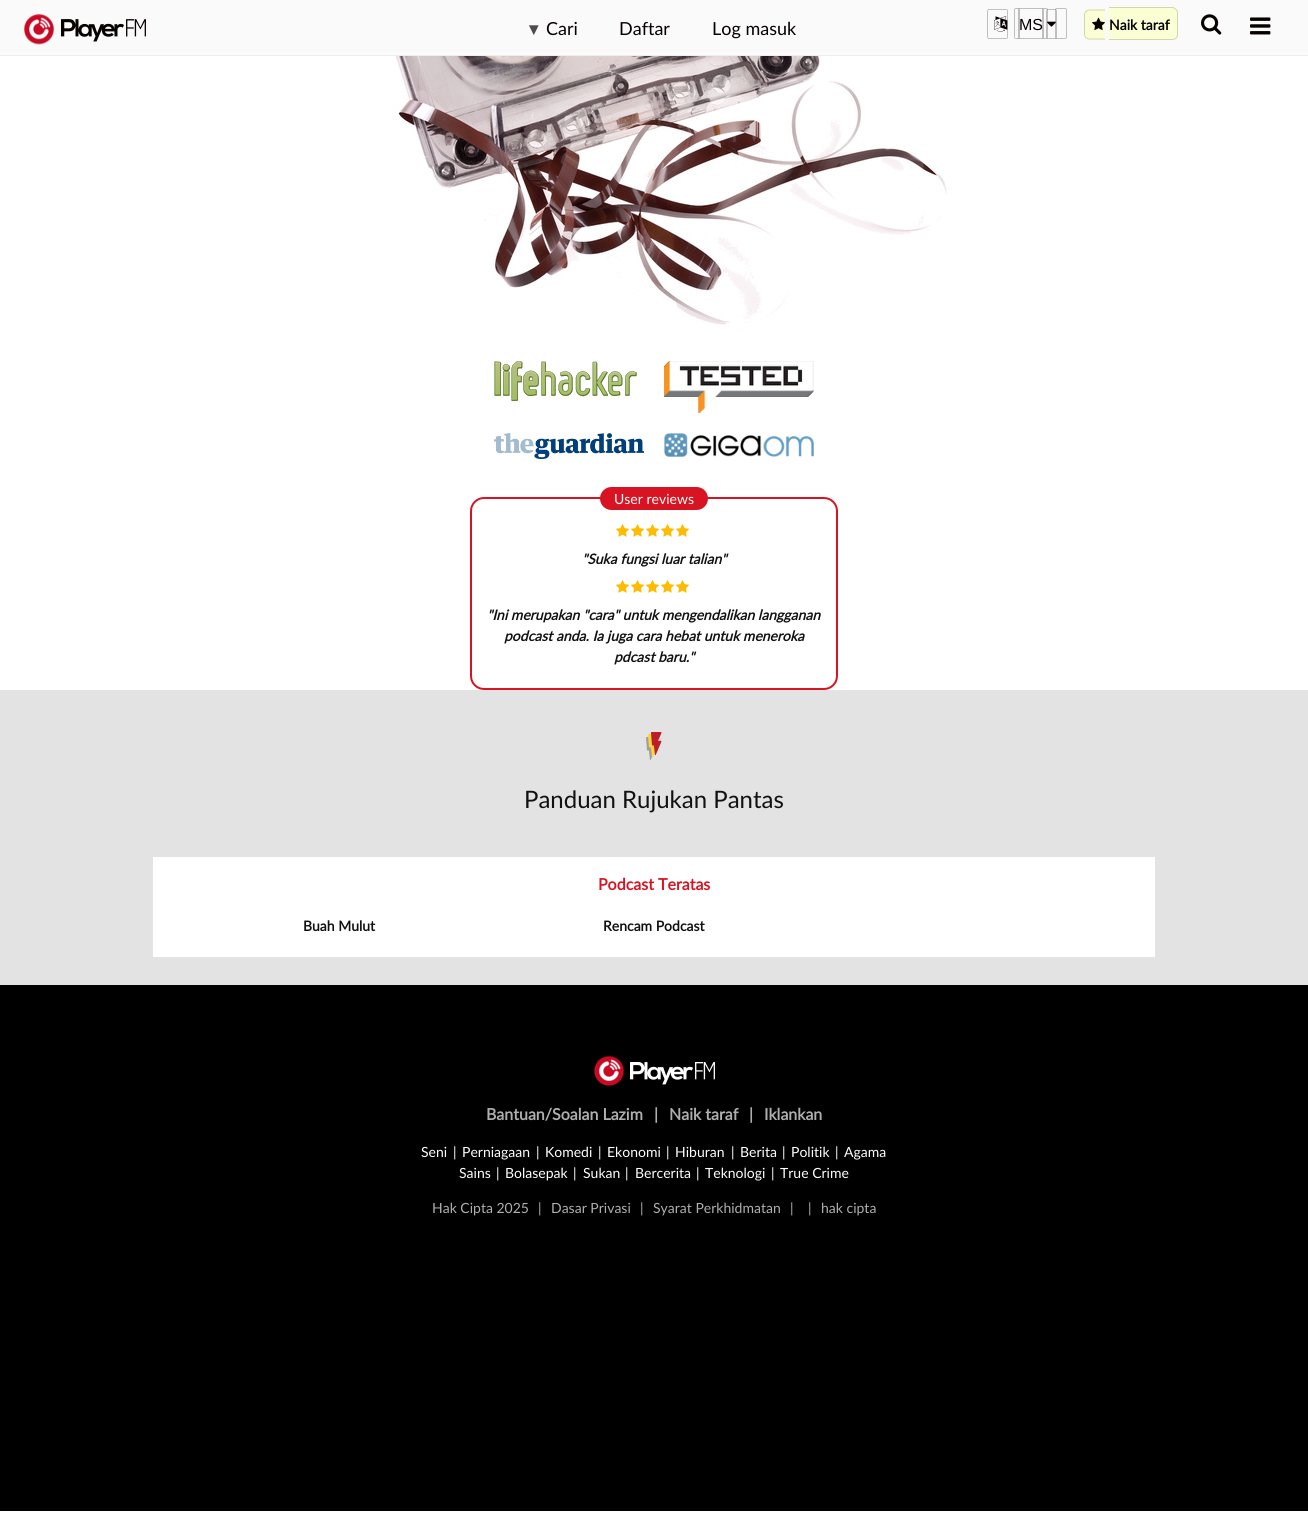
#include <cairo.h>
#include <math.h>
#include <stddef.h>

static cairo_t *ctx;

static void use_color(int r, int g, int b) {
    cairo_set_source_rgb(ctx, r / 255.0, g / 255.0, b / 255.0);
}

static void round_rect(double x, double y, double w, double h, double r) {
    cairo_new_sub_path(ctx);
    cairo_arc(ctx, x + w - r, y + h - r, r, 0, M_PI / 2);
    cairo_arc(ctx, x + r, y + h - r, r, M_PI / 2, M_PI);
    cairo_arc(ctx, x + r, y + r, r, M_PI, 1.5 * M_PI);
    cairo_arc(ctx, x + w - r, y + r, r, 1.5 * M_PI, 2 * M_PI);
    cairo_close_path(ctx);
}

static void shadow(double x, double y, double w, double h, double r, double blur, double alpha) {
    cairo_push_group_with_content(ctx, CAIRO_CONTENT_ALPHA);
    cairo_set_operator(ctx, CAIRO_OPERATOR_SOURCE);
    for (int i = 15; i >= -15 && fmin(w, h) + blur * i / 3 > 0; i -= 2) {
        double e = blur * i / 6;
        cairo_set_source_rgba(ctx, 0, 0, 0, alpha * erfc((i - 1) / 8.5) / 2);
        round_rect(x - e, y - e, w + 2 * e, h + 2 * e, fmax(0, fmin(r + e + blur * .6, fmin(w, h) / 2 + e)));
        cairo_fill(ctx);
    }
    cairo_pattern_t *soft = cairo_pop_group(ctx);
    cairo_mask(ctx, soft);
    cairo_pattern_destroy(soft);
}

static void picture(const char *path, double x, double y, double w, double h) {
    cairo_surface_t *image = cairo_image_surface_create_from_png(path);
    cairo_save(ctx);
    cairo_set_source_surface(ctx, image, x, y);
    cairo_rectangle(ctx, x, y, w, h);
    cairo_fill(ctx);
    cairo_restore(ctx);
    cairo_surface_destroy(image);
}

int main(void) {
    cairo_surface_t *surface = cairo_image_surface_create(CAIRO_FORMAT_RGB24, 1308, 1532);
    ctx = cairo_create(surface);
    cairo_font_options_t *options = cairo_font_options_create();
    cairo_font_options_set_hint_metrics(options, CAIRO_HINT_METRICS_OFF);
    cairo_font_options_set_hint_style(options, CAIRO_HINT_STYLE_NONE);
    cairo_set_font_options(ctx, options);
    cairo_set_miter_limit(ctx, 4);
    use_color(255, 255, 255);
    cairo_paint(ctx);
    use_color(251, 250, 250);
    cairo_rectangle(ctx, 0, 0, 1308, 55);
    cairo_fill(ctx);
    use_color(238, 238, 238);
    cairo_rectangle(ctx, 0, 55, 1308, 1);
    cairo_fill(ctx);
    picture("img1.png", 24, 14, 30, 31);
    picture("img2.png", 61, 19, 85, 23);
    cairo_select_font_face(ctx, "DejaVu Sans", CAIRO_FONT_SLANT_NORMAL, CAIRO_FONT_WEIGHT_BOLD);
    cairo_set_font_size(ctx, 18);
    use_color(80, 75, 75);
    cairo_move_to(ctx, 529, 35);
    cairo_show_text(ctx, "▾");
    cairo_select_font_face(ctx, "Lato", CAIRO_FONT_SLANT_NORMAL, CAIRO_FONT_WEIGHT_NORMAL);
    use_color(6, 0, 0);
    cairo_move_to(ctx, 546, 35);
    cairo_show_text(ctx, "Cari");
    cairo_move_to(ctx, 619, 35);
    cairo_show_text(ctx, "Daftar");
    cairo_move_to(ctx, 712, 35);
    cairo_show_text(ctx, "Log masuk");
    cairo_save(ctx);
    cairo_set_fill_rule(ctx, CAIRO_FILL_RULE_EVEN_ODD);
    cairo_new_path(ctx);
    cairo_move_to(ctx, 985, 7);
    cairo_line_to(ctx, 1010, 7);
    cairo_line_to(ctx, 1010, 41);
    cairo_line_to(ctx, 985, 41);
    cairo_close_path(ctx);
    cairo_move_to(ctx, 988, 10);
    cairo_line_to(ctx, 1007, 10);
    cairo_line_to(ctx, 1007, 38);
    cairo_line_to(ctx, 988, 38);
    cairo_close_path(ctx);
    cairo_clip(ctx);
    use_color(17, 17, 17);
    shadow(988, 10, 19, 28, 0, 0.5, 1);
    cairo_restore(ctx);
    cairo_save(ctx);
    cairo_set_fill_rule(ctx, CAIRO_FILL_RULE_EVEN_ODD);
    cairo_new_path(ctx);
    cairo_move_to(ctx, 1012, 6);
    cairo_line_to(ctx, 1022, 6);
    cairo_line_to(ctx, 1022, 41);
    cairo_line_to(ctx, 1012, 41);
    cairo_close_path(ctx);
    cairo_move_to(ctx, 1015, 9);
    cairo_line_to(ctx, 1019, 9);
    cairo_line_to(ctx, 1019, 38);
    cairo_line_to(ctx, 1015, 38);
    cairo_close_path(ctx);
    cairo_clip(ctx);
    use_color(17, 17, 17);
    shadow(1015, 9, 4, 29, 0, 0.5, 1);
    cairo_restore(ctx);
    cairo_save(ctx);
    cairo_set_fill_rule(ctx, CAIRO_FILL_RULE_EVEN_ODD);
    cairo_new_path(ctx);
    cairo_move_to(ctx, 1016, 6);
    cairo_line_to(ctx, 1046, 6);
    cairo_line_to(ctx, 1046, 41);
    cairo_line_to(ctx, 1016, 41);
    cairo_close_path(ctx);
    cairo_move_to(ctx, 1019, 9);
    cairo_line_to(ctx, 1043, 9);
    cairo_line_to(ctx, 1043, 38);
    cairo_line_to(ctx, 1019, 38);
    cairo_close_path(ctx);
    cairo_clip(ctx);
    use_color(17, 17, 17);
    shadow(1019, 9, 24, 29, 0, 0.5, 1);
    cairo_restore(ctx);
    cairo_save(ctx);
    cairo_set_fill_rule(ctx, CAIRO_FILL_RULE_EVEN_ODD);
    cairo_new_path(ctx);
    cairo_move_to(ctx, 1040, 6);
    cairo_line_to(ctx, 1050, 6);
    cairo_line_to(ctx, 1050, 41);
    cairo_line_to(ctx, 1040, 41);
    cairo_close_path(ctx);
    cairo_move_to(ctx, 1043, 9);
    cairo_line_to(ctx, 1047, 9);
    cairo_line_to(ctx, 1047, 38);
    cairo_line_to(ctx, 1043, 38);
    cairo_close_path(ctx);
    cairo_clip(ctx);
    use_color(17, 17, 17);
    shadow(1043, 9, 4, 29, 0, 0.5, 1);
    cairo_restore(ctx);
    cairo_save(ctx);
    cairo_set_fill_rule(ctx, CAIRO_FILL_RULE_EVEN_ODD);
    cairo_new_path(ctx);
    cairo_move_to(ctx, 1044, 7);
    cairo_line_to(ctx, 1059, 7);
    cairo_line_to(ctx, 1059, 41);
    cairo_line_to(ctx, 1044, 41);
    cairo_close_path(ctx);
    cairo_move_to(ctx, 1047, 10);
    cairo_line_to(ctx, 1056, 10);
    cairo_line_to(ctx, 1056, 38);
    cairo_line_to(ctx, 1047, 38);
    cairo_close_path(ctx);
    cairo_clip(ctx);
    use_color(17, 17, 17);
    shadow(1047, 10, 9, 28, 0, 0.5, 1);
    cairo_restore(ctx);
    cairo_save(ctx);
    cairo_set_fill_rule(ctx, CAIRO_FILL_RULE_EVEN_ODD);
    cairo_new_path(ctx);
    cairo_move_to(ctx, 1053, 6);
    cairo_line_to(ctx, 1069, 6);
    cairo_line_to(ctx, 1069, 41);
    cairo_line_to(ctx, 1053, 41);
    cairo_close_path(ctx);
    cairo_move_to(ctx, 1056, 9);
    cairo_line_to(ctx, 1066, 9);
    cairo_line_to(ctx, 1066, 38);
    cairo_line_to(ctx, 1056, 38);
    cairo_close_path(ctx);
    cairo_clip(ctx);
    use_color(17, 17, 17);
    shadow(1056, 9, 10, 29, 0, 0.5, 1);
    cairo_restore(ctx);
    picture("img3.png", 994, 16, 14, 16);
    cairo_select_font_face(ctx, "Liberation Sans", CAIRO_FONT_SLANT_NORMAL, CAIRO_FONT_WEIGHT_NORMAL);
    cairo_set_font_size(ctx, 16);
    cairo_move_to(ctx, 1019, 30);
    cairo_show_text(ctx, "MS");
    picture("img4.png", 1047, 21, 9, 6);
    use_color(250, 255, 212);
    cairo_new_path(ctx);
    cairo_move_to(ctx, 1090, 9);
    cairo_line_to(ctx, 1105, 9);
    cairo_line_to(ctx, 1105, 39);
    cairo_line_to(ctx, 1090, 39);
    cairo_curve_to(ctx, 1086.5, 39, 1084, 36.5, 1084, 33);
    cairo_line_to(ctx, 1084, 15);
    cairo_curve_to(ctx, 1084, 11.5, 1086.5, 9, 1090, 9);
    cairo_close_path(ctx);
    cairo_fill(ctx);
    use_color(209, 214, 175);
    cairo_set_fill_rule(ctx, CAIRO_FILL_RULE_EVEN_ODD);
    cairo_new_path(ctx);
    cairo_move_to(ctx, 1089.5, 9.5);
    cairo_line_to(ctx, 1105, 9.5);
    cairo_line_to(ctx, 1105, 39.5);
    cairo_line_to(ctx, 1089.5, 39.5);
    cairo_curve_to(ctx, 1086.5, 39.5, 1084, 37, 1084, 34);
    cairo_line_to(ctx, 1084, 15);
    cairo_curve_to(ctx, 1084, 12, 1086.5, 9.5, 1089.5, 9.5);
    cairo_close_path(ctx);
    cairo_move_to(ctx, 1089.5, 10.5);
    cairo_line_to(ctx, 1105, 10.5);
    cairo_line_to(ctx, 1105, 38.5);
    cairo_line_to(ctx, 1089.5, 38.5);
    cairo_curve_to(ctx, 1087, 38.5, 1085, 36.5, 1085, 34);
    cairo_line_to(ctx, 1085, 15);
    cairo_curve_to(ctx, 1085, 12.5, 1087, 10.5, 1089.5, 10.5);
    cairo_close_path(ctx);
    cairo_fill(ctx);
    use_color(250, 255, 212);
    cairo_new_path(ctx);
    cairo_move_to(ctx, 1109, 7);
    cairo_line_to(ctx, 1172, 7);
    cairo_curve_to(ctx, 1175.5, 7, 1178, 9.5, 1178, 13);
    cairo_line_to(ctx, 1178, 34);
    cairo_curve_to(ctx, 1178, 37.5, 1175.5, 40, 1172, 40);
    cairo_line_to(ctx, 1109, 40);
    cairo_close_path(ctx);
    cairo_fill(ctx);
    use_color(209, 214, 175);
    cairo_new_path(ctx);
    cairo_move_to(ctx, 1109, 7);
    cairo_line_to(ctx, 1172, 7);
    cairo_curve_to(ctx, 1175, 7, 1178, 10, 1178, 13);
    cairo_line_to(ctx, 1178, 35);
    cairo_curve_to(ctx, 1178, 38, 1175, 40, 1172, 40);
    cairo_line_to(ctx, 1109, 40);
    cairo_close_path(ctx);
    cairo_move_to(ctx, 1109, 8);
    cairo_line_to(ctx, 1172, 8);
    cairo_curve_to(ctx, 1175, 8, 1177, 11, 1177, 13);
    cairo_line_to(ctx, 1177, 35);
    cairo_curve_to(ctx, 1177, 37, 1175, 39, 1172, 39);
    cairo_line_to(ctx, 1109, 39);
    cairo_close_path(ctx);
    cairo_fill(ctx);
    picture("img5.png", 1092, 17, 13, 14);
    cairo_select_font_face(ctx, "Lato", CAIRO_FONT_SLANT_NORMAL, CAIRO_FONT_WEIGHT_BOLD);
    cairo_set_font_size(ctx, 14);
    use_color(6, 0, 0);
    cairo_move_to(ctx, 1109, 30);
    cairo_show_text(ctx, "Naik taraf");
    picture("img6.png", 1201, 14, 21, 21);
    picture("img7.png", 1250, 17, 21, 18);
    picture("img8.png", 378, 56, 569, 282);
    picture("img9.png", 494, 361, 143, 40);
    picture("img10.png", 664, 361, 150, 52);
    picture("img11.png", 494, 433, 150, 26);
    picture("img12.png", 664, 433, 150, 24);
    round_rect(471, 498, 366, 191, 13);
    use_color(216, 20, 34);
    cairo_stroke(ctx);
    round_rect(600, 487, 108, 23, 11.5);
    cairo_fill(ctx);
    cairo_select_font_face(ctx, "Lato", CAIRO_FONT_SLANT_NORMAL, CAIRO_FONT_WEIGHT_NORMAL);
    use_color(255, 255, 255);
    cairo_move_to(ctx, 614, 504);
    cairo_show_text(ctx, "User reviews");
    picture("img13.png", 616, 524, 13, 13);
    picture("img13.png", 631, 524, 13, 13);
    picture("img13.png", 646, 524, 13, 13);
    picture("img13.png", 661, 524, 13, 13);
    picture("img13.png", 676, 524, 13, 13);
    cairo_select_font_face(ctx, "Lato", CAIRO_FONT_SLANT_ITALIC, CAIRO_FONT_WEIGHT_BOLD);
    use_color(17, 17, 17);
    cairo_move_to(ctx, 582, 564);
    cairo_show_text(ctx, "\"Suka fungsi luar talian\"");
    picture("img13.png", 616, 580, 13, 13);
    picture("img13.png", 631, 580, 13, 13);
    picture("img13.png", 646, 580, 13, 13);
    picture("img13.png", 661, 580, 13, 13);
    picture("img13.png", 676, 580, 13, 13);
    cairo_move_to(ctx, 487, 620);
    cairo_show_text(ctx, "\"Ini merupakan \"cara\" untuk mengendalikan langganan");
    cairo_move_to(ctx, 504, 641);
    cairo_show_text(ctx, "podcast anda. Ia juga cara hebat untuk meneroka");
    cairo_move_to(ctx, 614, 662);
    cairo_show_text(ctx, "pdcast baru.\"");
    use_color(227, 227, 227);
    cairo_rectangle(ctx, 0, 690, 1308, 295);
    cairo_fill(ctx);
    picture("img14.png", 646, 732, 16, 28);
    cairo_select_font_face(ctx, "Lato", CAIRO_FONT_SLANT_NORMAL, CAIRO_FONT_WEIGHT_NORMAL);
    cairo_set_font_size(ctx, 24);
    use_color(17, 17, 17);
    cairo_move_to(ctx, 524, 808);
    cairo_show_text(ctx, "Panduan Rujukan Pantas");
    use_color(255, 255, 255);
    cairo_rectangle(ctx, 153, 857, 1002, 100);
    cairo_fill(ctx);
    cairo_select_font_face(ctx, "Lato", CAIRO_FONT_SLANT_NORMAL, CAIRO_FONT_WEIGHT_BOLD);
    cairo_set_font_size(ctx, 16);
    use_color(216, 20, 34);
    cairo_move_to(ctx, 598, 890);
    cairo_show_text(ctx, "Podcast Teratas");
    cairo_set_font_size(ctx, 14);
    use_color(17, 17, 17);
    cairo_move_to(ctx, 303, 931);
    cairo_show_text(ctx, "Buah Mulut");
    cairo_move_to(ctx, 603, 931);
    cairo_show_text(ctx, "Rencam Podcast");
    use_color(0, 0, 0);
    cairo_rectangle(ctx, 0, 985, 1308, 526);
    cairo_fill(ctx);
    picture("img15.png", 594, 1056, 30, 30);
    picture("img16.png", 630, 1062, 85, 23);
    cairo_set_font_size(ctx, 16);
    use_color(176, 175, 175);
    cairo_move_to(ctx, 486, 1120);
    cairo_show_text(ctx, "Bantuan/Soalan Lazim");
    cairo_move_to(ctx, 654, 1120);
    cairo_show_text(ctx, "|");
    cairo_move_to(ctx, 669, 1120);
    cairo_show_text(ctx, "Naik taraf");
    cairo_move_to(ctx, 749, 1120);
    cairo_show_text(ctx, "|");
    cairo_move_to(ctx, 764, 1120);
    cairo_show_text(ctx, "Iklankan");
    cairo_select_font_face(ctx, "Lato", CAIRO_FONT_SLANT_NORMAL, CAIRO_FONT_WEIGHT_NORMAL);
    cairo_set_font_size(ctx, 14);
    use_color(255, 255, 255);
    cairo_move_to(ctx, 421, 1157);
    cairo_show_text(ctx, "Seni");
    cairo_move_to(ctx, 453, 1157);
    cairo_show_text(ctx, "|");
    cairo_move_to(ctx, 462, 1157);
    cairo_show_text(ctx, "Perniagaan");
    cairo_move_to(ctx, 536, 1157);
    cairo_show_text(ctx, "|");
    cairo_move_to(ctx, 545, 1157);
    cairo_show_text(ctx, "Komedi");
    cairo_move_to(ctx, 598, 1157);
    cairo_show_text(ctx, "|");
    cairo_move_to(ctx, 607, 1157);
    cairo_show_text(ctx, "Ekonomi");
    cairo_move_to(ctx, 666, 1157);
    cairo_show_text(ctx, "|");
    cairo_move_to(ctx, 675, 1157);
    cairo_show_text(ctx, "Hiburan");
    cairo_move_to(ctx, 731, 1157);
    cairo_show_text(ctx, "|");
    cairo_move_to(ctx, 740, 1157);
    cairo_show_text(ctx, "Berita");
    cairo_move_to(ctx, 782, 1157);
    cairo_show_text(ctx, "|");
    cairo_move_to(ctx, 791, 1157);
    cairo_show_text(ctx, "Politik");
    cairo_move_to(ctx, 835, 1157);
    cairo_show_text(ctx, "|");
    cairo_move_to(ctx, 844, 1157);
    cairo_show_text(ctx, "Agama");
    cairo_move_to(ctx, 459, 1178);
    cairo_show_text(ctx, "Sains");
    cairo_move_to(ctx, 496, 1178);
    cairo_show_text(ctx, "|");
    cairo_move_to(ctx, 505, 1178);
    cairo_show_text(ctx, "Bolasepak");
    cairo_move_to(ctx, 573, 1178);
    cairo_show_text(ctx, "|");
    cairo_move_to(ctx, 583, 1178);
    cairo_show_text(ctx, "Sukan");
    cairo_move_to(ctx, 625, 1178);
    cairo_show_text(ctx, "|");
    cairo_move_to(ctx, 635, 1178);
    cairo_show_text(ctx, "Bercerita");
    cairo_move_to(ctx, 696, 1178);
    cairo_show_text(ctx, "|");
    cairo_move_to(ctx, 705, 1178);
    cairo_show_text(ctx, "Teknologi");
    cairo_move_to(ctx, 771, 1178);
    cairo_show_text(ctx, "|");
    cairo_move_to(ctx, 780, 1178);
    cairo_show_text(ctx, "True Crime");
    use_color(176, 175, 175);
    cairo_move_to(ctx, 432, 1213);
    cairo_show_text(ctx, "Hak Cipta 2025");
    cairo_move_to(ctx, 538, 1213);
    cairo_show_text(ctx, "|");
    cairo_move_to(ctx, 551, 1213);
    cairo_show_text(ctx, "Dasar Privasi");
    cairo_move_to(ctx, 640, 1213);
    cairo_show_text(ctx, "|");
    cairo_move_to(ctx, 653, 1213);
    cairo_show_text(ctx, "Syarat Perkhidmatan");
    cairo_move_to(ctx, 790, 1213);
    cairo_show_text(ctx, "|");
    cairo_move_to(ctx, 808, 1213);
    cairo_show_text(ctx, "|");
    cairo_move_to(ctx, 821, 1213);
    cairo_show_text(ctx, "hak cipta");
    cairo_surface_write_to_png(surface, "result.png");
    cairo_font_options_destroy(options);
    cairo_destroy(ctx);
    cairo_surface_destroy(surface);
    return 0;
}
